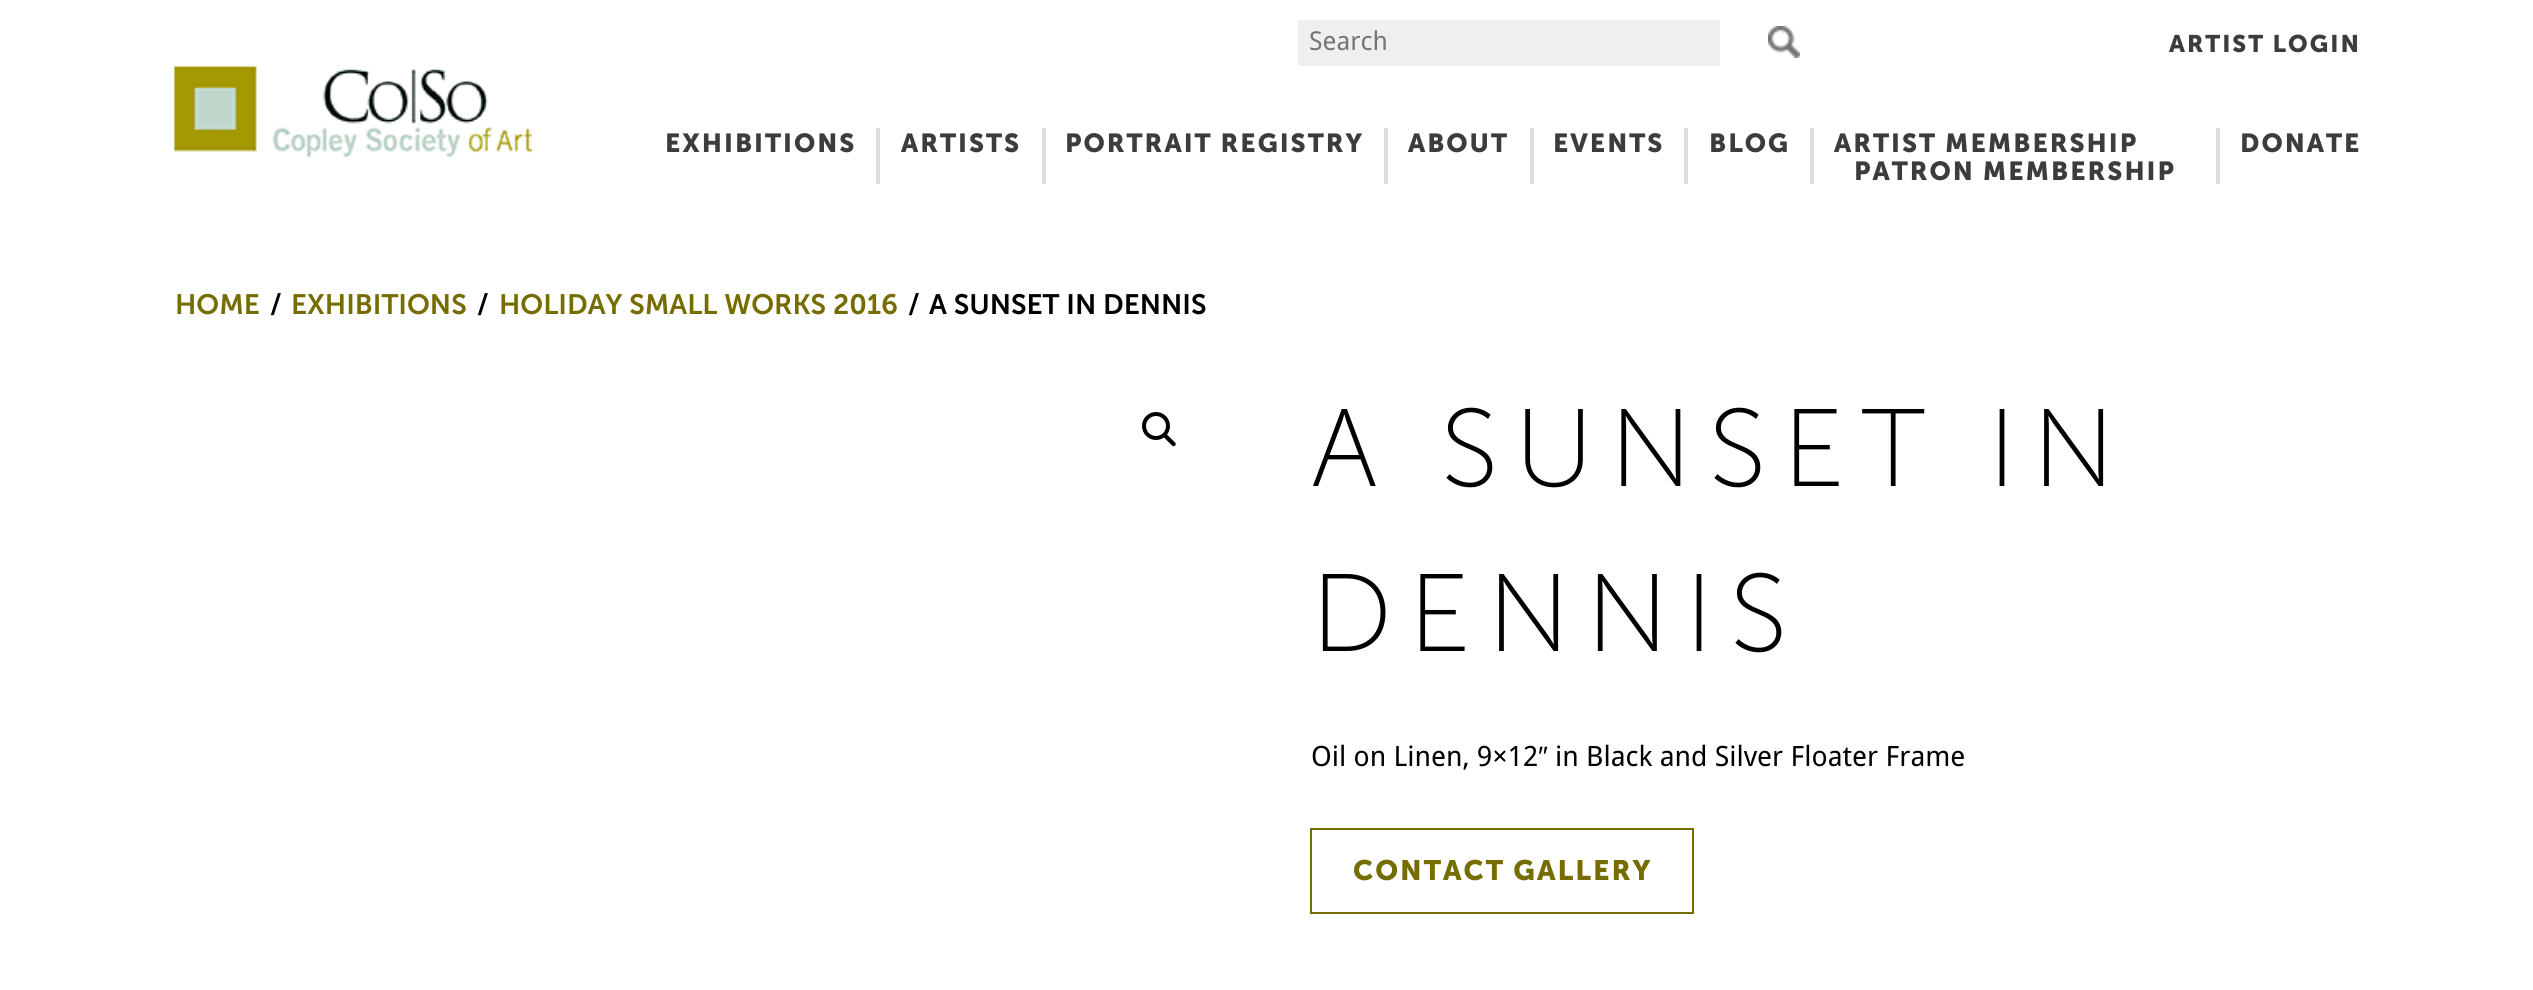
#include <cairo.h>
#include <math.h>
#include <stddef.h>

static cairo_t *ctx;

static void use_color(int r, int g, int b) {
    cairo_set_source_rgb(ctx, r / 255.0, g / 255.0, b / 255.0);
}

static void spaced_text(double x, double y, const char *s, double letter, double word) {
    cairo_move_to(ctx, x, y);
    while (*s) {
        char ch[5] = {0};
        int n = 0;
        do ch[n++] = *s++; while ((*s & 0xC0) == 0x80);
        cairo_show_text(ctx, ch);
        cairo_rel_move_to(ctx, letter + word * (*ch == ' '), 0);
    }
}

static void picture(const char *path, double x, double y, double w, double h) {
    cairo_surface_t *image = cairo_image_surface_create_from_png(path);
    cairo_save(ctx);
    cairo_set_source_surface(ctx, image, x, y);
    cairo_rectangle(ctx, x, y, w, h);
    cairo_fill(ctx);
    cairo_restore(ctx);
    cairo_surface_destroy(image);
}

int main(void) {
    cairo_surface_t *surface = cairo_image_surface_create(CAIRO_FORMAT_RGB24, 2533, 990);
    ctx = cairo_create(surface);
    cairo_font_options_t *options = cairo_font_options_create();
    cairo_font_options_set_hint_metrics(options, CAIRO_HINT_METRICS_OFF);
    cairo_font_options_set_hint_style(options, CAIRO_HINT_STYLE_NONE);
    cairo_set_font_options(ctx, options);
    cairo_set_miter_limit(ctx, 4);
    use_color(255, 255, 255);
    cairo_paint(ctx);
    picture("img1.png", 173, 65, 360, 94);
    use_color(239, 239, 239);
    cairo_rectangle(ctx, 1298, 20, 422, 46);
    cairo_fill(ctx);
    cairo_select_font_face(ctx, "Droid Sans", CAIRO_FONT_SLANT_NORMAL, CAIRO_FONT_WEIGHT_NORMAL);
    cairo_set_font_size(ctx, 26);
    use_color(117, 117, 117);
    cairo_move_to(ctx, 1309, 50);
    cairo_show_text(ctx, "Search");
    picture("img2.png", 1768, 26, 32, 32);
    cairo_select_font_face(ctx, "Museo Sans", CAIRO_FONT_SLANT_NORMAL, CAIRO_FONT_WEIGHT_BOLD);
    cairo_set_font_size(ctx, 24);
    use_color(60, 60, 60);
    spaced_text(2169, 52, "ARTIST LOGIN", 2, 0);
    cairo_set_font_size(ctx, 26);
    spaced_text(665, 152, "EXHIBITIONS", 2, 0);
    use_color(221, 221, 221);
    cairo_rectangle(ctx, 876, 128, 4, 56);
    cairo_fill(ctx);
    use_color(60, 60, 60);
    spaced_text(901, 152, "ARTISTS", 2, 0);
    use_color(221, 221, 221);
    cairo_rectangle(ctx, 1042, 128, 4, 56);
    cairo_fill(ctx);
    use_color(60, 60, 60);
    spaced_text(1065, 152, "PORTRAIT REGISTRY", 2, 0);
    use_color(221, 221, 221);
    cairo_rectangle(ctx, 1384, 128, 4, 56);
    cairo_fill(ctx);
    use_color(60, 60, 60);
    spaced_text(1408, 152, "ABOUT", 2, 0);
    use_color(221, 221, 221);
    cairo_rectangle(ctx, 1530, 128, 4, 56);
    cairo_fill(ctx);
    use_color(60, 60, 60);
    spaced_text(1553, 152, "EVENTS", 2, 0);
    use_color(221, 221, 221);
    cairo_rectangle(ctx, 1684, 128, 4, 56);
    cairo_fill(ctx);
    use_color(60, 60, 60);
    spaced_text(1709, 152, "BLOG", 2, 0);
    use_color(221, 221, 221);
    cairo_rectangle(ctx, 1810, 128, 4, 56);
    cairo_fill(ctx);
    use_color(60, 60, 60);
    spaced_text(1834, 152, "ARTIST MEMBERSHIP", 2, 0);
    spaced_text(1854, 180, "PATRON MEMBERSHIP", 2, 0);
    use_color(221, 221, 221);
    cairo_rectangle(ctx, 2216, 128, 4, 56);
    cairo_fill(ctx);
    use_color(60, 60, 60);
    spaced_text(2240, 152, "DONATE", 2, 0);
    cairo_select_font_face(ctx, "Museo Sans SemiBold", CAIRO_FONT_SLANT_NORMAL, CAIRO_FONT_WEIGHT_NORMAL);
    cairo_set_font_size(ctx, 28);
    use_color(117, 109, 0);
    cairo_move_to(ctx, 175, 314);
    cairo_show_text(ctx, "HOME");
    use_color(0, 0, 0);
    cairo_move_to(ctx, 270, 314);
    cairo_show_text(ctx, "/");
    use_color(117, 109, 0);
    cairo_move_to(ctx, 291, 314);
    cairo_show_text(ctx, "EXHIBITIONS");
    use_color(0, 0, 0);
    cairo_move_to(ctx, 477, 314);
    cairo_show_text(ctx, "/");
    use_color(117, 109, 0);
    cairo_move_to(ctx, 499, 314);
    cairo_show_text(ctx, "HOLIDAY SMALL WORKS 2016");
    use_color(0, 0, 0);
    cairo_move_to(ctx, 908, 314);
    cairo_show_text(ctx, "/");
    cairo_move_to(ctx, 929, 314);
    cairo_show_text(ctx, "A SUNSET IN DENNIS");
    cairo_new_path(ctx);
    cairo_arc(ctx, 1156, 426, 12, 0, 2 * M_PI);
    cairo_set_line_width(ctx, 4);
    cairo_stroke(ctx);
    cairo_new_path(ctx);
    cairo_move_to(ctx, 1163.5, 434);
    cairo_curve_to(ctx, 1164.5, 433.5, 1165.5, 433.5, 1166.5, 434);
    cairo_line_to(ctx, 1175, 442.5);
    cairo_curve_to(ctx, 1176, 443.5, 1176, 445, 1175, 445.5);
    cairo_curve_to(ctx, 1174, 446.5, 1173, 446.5, 1172, 445.5);
    cairo_line_to(ctx, 1163.5, 437);
    cairo_curve_to(ctx, 1163, 436.5, 1163, 435, 1163.5, 434);
    cairo_close_path(ctx);
    cairo_fill(ctx);
    cairo_select_font_face(ctx, "Museo Sans ExtraLight", CAIRO_FONT_SLANT_NORMAL, CAIRO_FONT_WEIGHT_NORMAL);
    cairo_set_font_size(ctx, 110);
    spaced_text(1311, 486, "A SUNSET IN", 16, 0);
    spaced_text(1311, 651, "DENNIS", 16, 0);
    cairo_select_font_face(ctx, "Droid Sans", CAIRO_FONT_SLANT_NORMAL, CAIRO_FONT_WEIGHT_NORMAL);
    cairo_set_font_size(ctx, 28);
    cairo_move_to(ctx, 1311, 766);
    cairo_show_text(ctx, "Oil on Linen, 9×12");
    cairo_select_font_face(ctx, "Liberation Sans", CAIRO_FONT_SLANT_NORMAL, CAIRO_FONT_WEIGHT_NORMAL);
    cairo_move_to(ctx, 1538, 766);
    cairo_show_text(ctx, "″");
    cairo_select_font_face(ctx, "Droid Sans", CAIRO_FONT_SLANT_NORMAL, CAIRO_FONT_WEIGHT_NORMAL);
    cairo_move_to(ctx, 1555, 766);
    cairo_show_text(ctx, "in Black and Silver Floater Frame");
    cairo_rectangle(ctx, 1311, 829, 382, 84);
    use_color(117, 109, 0);
    cairo_set_line_width(ctx, 2);
    cairo_stroke(ctx);
    cairo_select_font_face(ctx, "Museo Sans", CAIRO_FONT_SLANT_NORMAL, CAIRO_FONT_WEIGHT_BOLD);
    spaced_text(1353, 880, "CONTACT GALLERY", 2, 0);
    cairo_surface_write_to_png(surface, "result.png");
    cairo_font_options_destroy(options);
    cairo_destroy(ctx);
    cairo_surface_destroy(surface);
    return 0;
}
